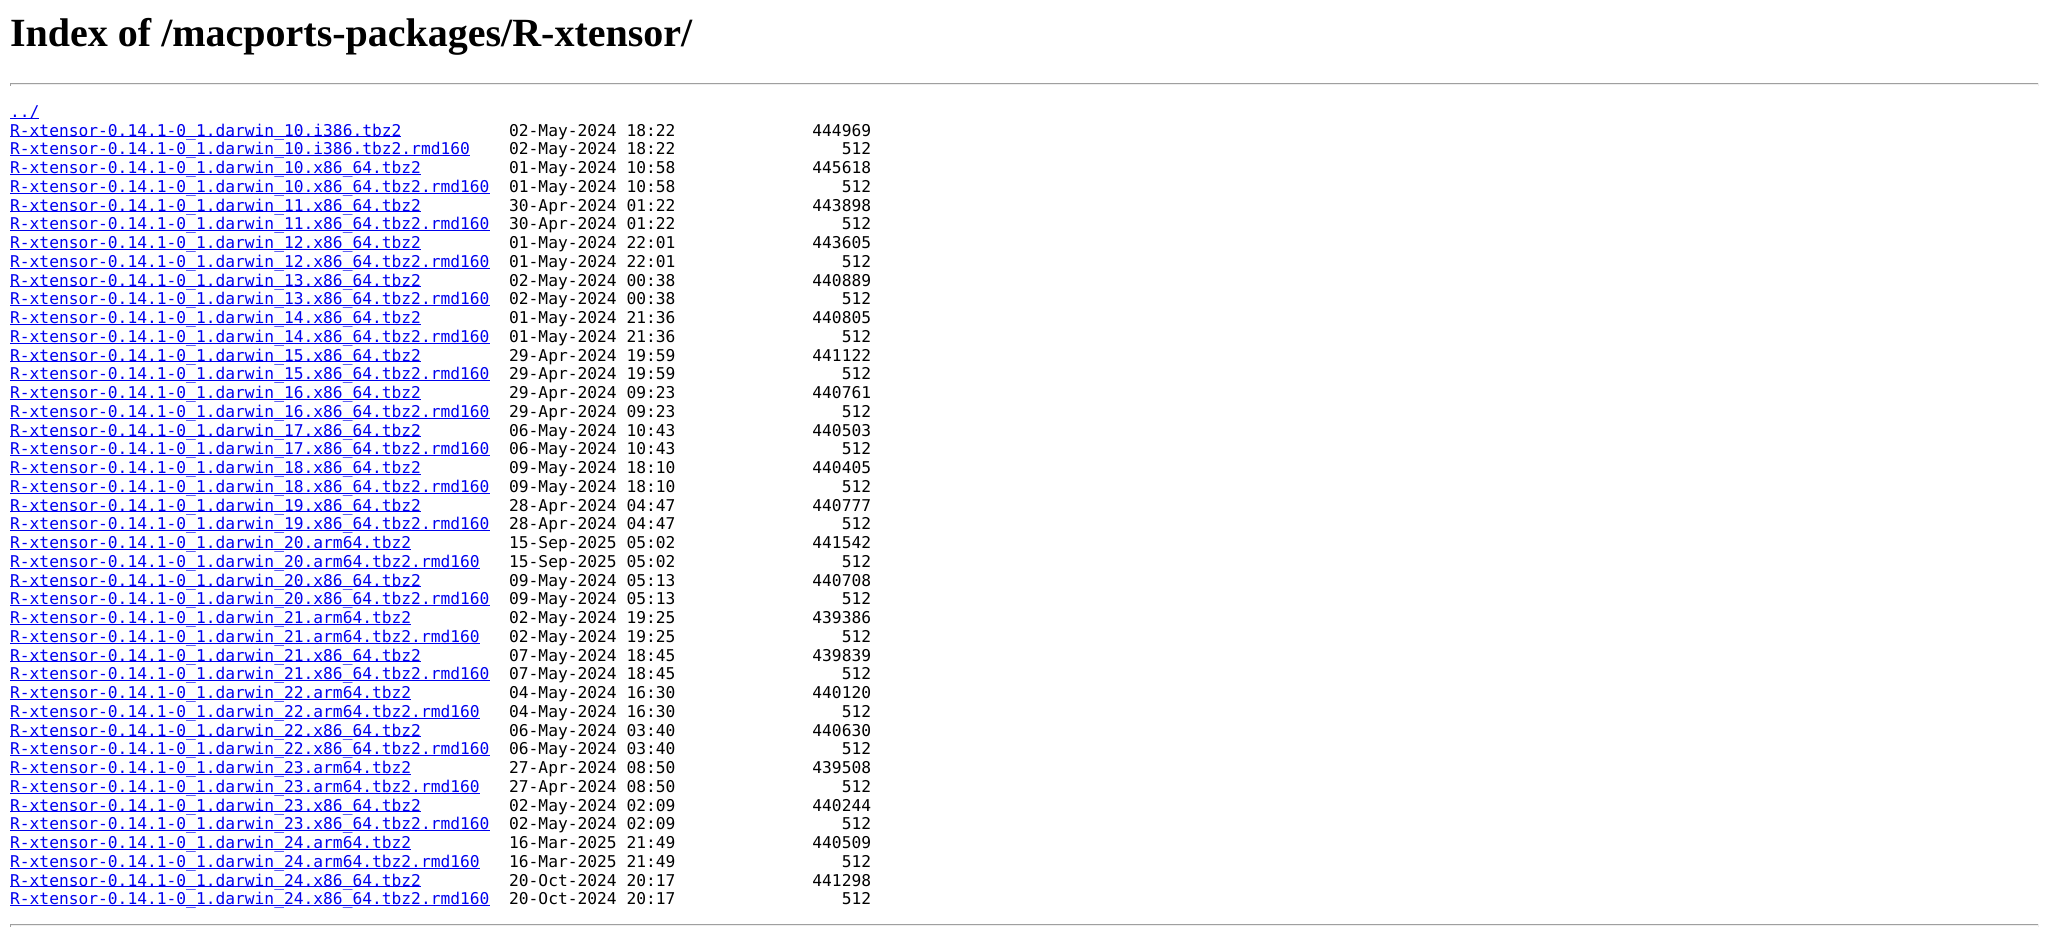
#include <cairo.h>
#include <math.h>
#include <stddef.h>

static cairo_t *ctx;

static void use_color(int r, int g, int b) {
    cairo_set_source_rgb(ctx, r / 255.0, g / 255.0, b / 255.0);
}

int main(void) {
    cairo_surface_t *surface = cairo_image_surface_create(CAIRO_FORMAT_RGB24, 2048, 940);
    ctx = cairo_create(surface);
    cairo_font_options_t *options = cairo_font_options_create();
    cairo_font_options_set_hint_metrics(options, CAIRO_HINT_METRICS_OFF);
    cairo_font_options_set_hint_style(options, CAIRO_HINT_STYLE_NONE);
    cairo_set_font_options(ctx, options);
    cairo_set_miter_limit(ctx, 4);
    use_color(255, 255, 255);
    cairo_paint(ctx);
    cairo_select_font_face(ctx, "Liberation Serif", CAIRO_FONT_SLANT_NORMAL, CAIRO_FONT_WEIGHT_BOLD);
    cairo_set_font_size(ctx, 40);
    use_color(0, 0, 0);
    cairo_move_to(ctx, 10, 46);
    cairo_show_text(ctx, "Index of /macports-packages/R-xtensor/");
    use_color(159, 159, 159);
    cairo_rectangle(ctx, 10, 83, 2029, 1);
    cairo_fill(ctx);
    use_color(238, 238, 238);
    cairo_rectangle(ctx, 2038, 83, 1, 3);
    cairo_fill(ctx);
    cairo_rectangle(ctx, 10, 84, 2029, 1);
    cairo_fill(ctx);
    use_color(159, 159, 159);
    cairo_rectangle(ctx, 10, 83, 1, 3);
    cairo_fill(ctx);
    use_color(0, 0, 238);
    cairo_rectangle(ctx, 10, 118, 29, 1);
    cairo_fill(ctx);
    cairo_select_font_face(ctx, "DejaVu Sans Mono", CAIRO_FONT_SLANT_NORMAL, CAIRO_FONT_WEIGHT_NORMAL);
    cairo_set_font_size(ctx, 16.25);
    cairo_move_to(ctx, 10, 117);
    cairo_show_text(ctx, "../");
    cairo_rectangle(ctx, 10, 136, 391, 1);
    cairo_fill(ctx);
    cairo_move_to(ctx, 10, 136);
    cairo_show_text(ctx, "R-xtensor-0.14.1-0_1.darwin_10.i386.tbz2");
    use_color(0, 0, 0);
    cairo_move_to(ctx, 509, 136);
    cairo_show_text(ctx, "02-May-2024 18:22              444969");
    use_color(0, 0, 238);
    cairo_rectangle(ctx, 10, 155, 460, 1);
    cairo_fill(ctx);
    cairo_move_to(ctx, 10, 154);
    cairo_show_text(ctx, "R-xtensor-0.14.1-0_1.darwin_10.i386.tbz2.rmd160");
    use_color(0, 0, 0);
    cairo_move_to(ctx, 509, 154);
    cairo_show_text(ctx, "02-May-2024 18:22                 512");
    use_color(0, 0, 238);
    cairo_rectangle(ctx, 10, 174, 411, 1);
    cairo_fill(ctx);
    cairo_move_to(ctx, 10, 173);
    cairo_show_text(ctx, "R-xtensor-0.14.1-0_1.darwin_10.x86_64.tbz2");
    use_color(0, 0, 0);
    cairo_move_to(ctx, 509, 173);
    cairo_show_text(ctx, "01-May-2024 10:58              445618");
    use_color(0, 0, 238);
    cairo_rectangle(ctx, 10, 193, 480, 1);
    cairo_fill(ctx);
    cairo_move_to(ctx, 10, 192);
    cairo_show_text(ctx, "R-xtensor-0.14.1-0_1.darwin_10.x86_64.tbz2.rmd160");
    use_color(0, 0, 0);
    cairo_move_to(ctx, 509, 192);
    cairo_show_text(ctx, "01-May-2024 10:58                 512");
    use_color(0, 0, 238);
    cairo_rectangle(ctx, 10, 211, 411, 1);
    cairo_fill(ctx);
    cairo_move_to(ctx, 10, 211);
    cairo_show_text(ctx, "R-xtensor-0.14.1-0_1.darwin_11.x86_64.tbz2");
    use_color(0, 0, 0);
    cairo_move_to(ctx, 509, 211);
    cairo_show_text(ctx, "30-Apr-2024 01:22              443898");
    use_color(0, 0, 238);
    cairo_rectangle(ctx, 10, 230, 480, 1);
    cairo_fill(ctx);
    cairo_move_to(ctx, 10, 229);
    cairo_show_text(ctx, "R-xtensor-0.14.1-0_1.darwin_11.x86_64.tbz2.rmd160");
    use_color(0, 0, 0);
    cairo_move_to(ctx, 509, 229);
    cairo_show_text(ctx, "30-Apr-2024 01:22                 512");
    use_color(0, 0, 238);
    cairo_rectangle(ctx, 10, 249, 411, 1);
    cairo_fill(ctx);
    cairo_move_to(ctx, 10, 248);
    cairo_show_text(ctx, "R-xtensor-0.14.1-0_1.darwin_12.x86_64.tbz2");
    use_color(0, 0, 0);
    cairo_move_to(ctx, 509, 248);
    cairo_show_text(ctx, "01-May-2024 22:01              443605");
    use_color(0, 0, 238);
    cairo_rectangle(ctx, 10, 268, 480, 1);
    cairo_fill(ctx);
    cairo_move_to(ctx, 10, 267);
    cairo_show_text(ctx, "R-xtensor-0.14.1-0_1.darwin_12.x86_64.tbz2.rmd160");
    use_color(0, 0, 0);
    cairo_move_to(ctx, 509, 267);
    cairo_show_text(ctx, "01-May-2024 22:01                 512");
    use_color(0, 0, 238);
    cairo_rectangle(ctx, 10, 286, 411, 1);
    cairo_fill(ctx);
    cairo_move_to(ctx, 10, 286);
    cairo_show_text(ctx, "R-xtensor-0.14.1-0_1.darwin_13.x86_64.tbz2");
    use_color(0, 0, 0);
    cairo_move_to(ctx, 509, 286);
    cairo_show_text(ctx, "02-May-2024 00:38              440889");
    use_color(0, 0, 238);
    cairo_rectangle(ctx, 10, 305, 480, 1);
    cairo_fill(ctx);
    cairo_move_to(ctx, 10, 304);
    cairo_show_text(ctx, "R-xtensor-0.14.1-0_1.darwin_13.x86_64.tbz2.rmd160");
    use_color(0, 0, 0);
    cairo_move_to(ctx, 509, 304);
    cairo_show_text(ctx, "02-May-2024 00:38                 512");
    use_color(0, 0, 238);
    cairo_rectangle(ctx, 10, 324, 411, 1);
    cairo_fill(ctx);
    cairo_move_to(ctx, 10, 323);
    cairo_show_text(ctx, "R-xtensor-0.14.1-0_1.darwin_14.x86_64.tbz2");
    use_color(0, 0, 0);
    cairo_move_to(ctx, 509, 323);
    cairo_show_text(ctx, "01-May-2024 21:36              440805");
    use_color(0, 0, 238);
    cairo_rectangle(ctx, 10, 343, 480, 1);
    cairo_fill(ctx);
    cairo_move_to(ctx, 10, 342);
    cairo_show_text(ctx, "R-xtensor-0.14.1-0_1.darwin_14.x86_64.tbz2.rmd160");
    use_color(0, 0, 0);
    cairo_move_to(ctx, 509, 342);
    cairo_show_text(ctx, "01-May-2024 21:36                 512");
    use_color(0, 0, 238);
    cairo_rectangle(ctx, 10, 361, 411, 1);
    cairo_fill(ctx);
    cairo_move_to(ctx, 10, 361);
    cairo_show_text(ctx, "R-xtensor-0.14.1-0_1.darwin_15.x86_64.tbz2");
    use_color(0, 0, 0);
    cairo_move_to(ctx, 509, 361);
    cairo_show_text(ctx, "29-Apr-2024 19:59              441122");
    use_color(0, 0, 238);
    cairo_rectangle(ctx, 10, 380, 480, 1);
    cairo_fill(ctx);
    cairo_move_to(ctx, 10, 379);
    cairo_show_text(ctx, "R-xtensor-0.14.1-0_1.darwin_15.x86_64.tbz2.rmd160");
    use_color(0, 0, 0);
    cairo_move_to(ctx, 509, 379);
    cairo_show_text(ctx, "29-Apr-2024 19:59                 512");
    use_color(0, 0, 238);
    cairo_rectangle(ctx, 10, 399, 411, 1);
    cairo_fill(ctx);
    cairo_move_to(ctx, 10, 398);
    cairo_show_text(ctx, "R-xtensor-0.14.1-0_1.darwin_16.x86_64.tbz2");
    use_color(0, 0, 0);
    cairo_move_to(ctx, 509, 398);
    cairo_show_text(ctx, "29-Apr-2024 09:23              440761");
    use_color(0, 0, 238);
    cairo_rectangle(ctx, 10, 418, 480, 1);
    cairo_fill(ctx);
    cairo_move_to(ctx, 10, 417);
    cairo_show_text(ctx, "R-xtensor-0.14.1-0_1.darwin_16.x86_64.tbz2.rmd160");
    use_color(0, 0, 0);
    cairo_move_to(ctx, 509, 417);
    cairo_show_text(ctx, "29-Apr-2024 09:23                 512");
    use_color(0, 0, 238);
    cairo_rectangle(ctx, 10, 436, 411, 1);
    cairo_fill(ctx);
    cairo_move_to(ctx, 10, 436);
    cairo_show_text(ctx, "R-xtensor-0.14.1-0_1.darwin_17.x86_64.tbz2");
    use_color(0, 0, 0);
    cairo_move_to(ctx, 509, 436);
    cairo_show_text(ctx, "06-May-2024 10:43              440503");
    use_color(0, 0, 238);
    cairo_rectangle(ctx, 10, 455, 480, 1);
    cairo_fill(ctx);
    cairo_move_to(ctx, 10, 454);
    cairo_show_text(ctx, "R-xtensor-0.14.1-0_1.darwin_17.x86_64.tbz2.rmd160");
    use_color(0, 0, 0);
    cairo_move_to(ctx, 509, 454);
    cairo_show_text(ctx, "06-May-2024 10:43                 512");
    use_color(0, 0, 238);
    cairo_rectangle(ctx, 10, 474, 411, 1);
    cairo_fill(ctx);
    cairo_move_to(ctx, 10, 473);
    cairo_show_text(ctx, "R-xtensor-0.14.1-0_1.darwin_18.x86_64.tbz2");
    use_color(0, 0, 0);
    cairo_move_to(ctx, 509, 473);
    cairo_show_text(ctx, "09-May-2024 18:10              440405");
    use_color(0, 0, 238);
    cairo_rectangle(ctx, 10, 493, 480, 1);
    cairo_fill(ctx);
    cairo_move_to(ctx, 10, 492);
    cairo_show_text(ctx, "R-xtensor-0.14.1-0_1.darwin_18.x86_64.tbz2.rmd160");
    use_color(0, 0, 0);
    cairo_move_to(ctx, 509, 492);
    cairo_show_text(ctx, "09-May-2024 18:10                 512");
    use_color(0, 0, 238);
    cairo_rectangle(ctx, 10, 511, 411, 1);
    cairo_fill(ctx);
    cairo_move_to(ctx, 10, 511);
    cairo_show_text(ctx, "R-xtensor-0.14.1-0_1.darwin_19.x86_64.tbz2");
    use_color(0, 0, 0);
    cairo_move_to(ctx, 509, 511);
    cairo_show_text(ctx, "28-Apr-2024 04:47              440777");
    use_color(0, 0, 238);
    cairo_rectangle(ctx, 10, 530, 480, 1);
    cairo_fill(ctx);
    cairo_move_to(ctx, 10, 529);
    cairo_show_text(ctx, "R-xtensor-0.14.1-0_1.darwin_19.x86_64.tbz2.rmd160");
    use_color(0, 0, 0);
    cairo_move_to(ctx, 509, 529);
    cairo_show_text(ctx, "28-Apr-2024 04:47                 512");
    use_color(0, 0, 238);
    cairo_rectangle(ctx, 10, 549, 401, 1);
    cairo_fill(ctx);
    cairo_move_to(ctx, 10, 548);
    cairo_show_text(ctx, "R-xtensor-0.14.1-0_1.darwin_20.arm64.tbz2");
    use_color(0, 0, 0);
    cairo_move_to(ctx, 509, 548);
    cairo_show_text(ctx, "15-Sep-2025 05:02              441542");
    use_color(0, 0, 238);
    cairo_rectangle(ctx, 10, 568, 470, 1);
    cairo_fill(ctx);
    cairo_move_to(ctx, 10, 567);
    cairo_show_text(ctx, "R-xtensor-0.14.1-0_1.darwin_20.arm64.tbz2.rmd160");
    use_color(0, 0, 0);
    cairo_move_to(ctx, 509, 567);
    cairo_show_text(ctx, "15-Sep-2025 05:02                 512");
    use_color(0, 0, 238);
    cairo_rectangle(ctx, 10, 586, 411, 1);
    cairo_fill(ctx);
    cairo_move_to(ctx, 10, 586);
    cairo_show_text(ctx, "R-xtensor-0.14.1-0_1.darwin_20.x86_64.tbz2");
    use_color(0, 0, 0);
    cairo_move_to(ctx, 509, 586);
    cairo_show_text(ctx, "09-May-2024 05:13              440708");
    use_color(0, 0, 238);
    cairo_rectangle(ctx, 10, 605, 480, 1);
    cairo_fill(ctx);
    cairo_move_to(ctx, 10, 604);
    cairo_show_text(ctx, "R-xtensor-0.14.1-0_1.darwin_20.x86_64.tbz2.rmd160");
    use_color(0, 0, 0);
    cairo_move_to(ctx, 509, 604);
    cairo_show_text(ctx, "09-May-2024 05:13                 512");
    use_color(0, 0, 238);
    cairo_rectangle(ctx, 10, 624, 401, 1);
    cairo_fill(ctx);
    cairo_move_to(ctx, 10, 623);
    cairo_show_text(ctx, "R-xtensor-0.14.1-0_1.darwin_21.arm64.tbz2");
    use_color(0, 0, 0);
    cairo_move_to(ctx, 509, 623);
    cairo_show_text(ctx, "02-May-2024 19:25              439386");
    use_color(0, 0, 238);
    cairo_rectangle(ctx, 10, 643, 470, 1);
    cairo_fill(ctx);
    cairo_move_to(ctx, 10, 642);
    cairo_show_text(ctx, "R-xtensor-0.14.1-0_1.darwin_21.arm64.tbz2.rmd160");
    use_color(0, 0, 0);
    cairo_move_to(ctx, 509, 642);
    cairo_show_text(ctx, "02-May-2024 19:25                 512");
    use_color(0, 0, 238);
    cairo_rectangle(ctx, 10, 661, 411, 1);
    cairo_fill(ctx);
    cairo_move_to(ctx, 10, 661);
    cairo_show_text(ctx, "R-xtensor-0.14.1-0_1.darwin_21.x86_64.tbz2");
    use_color(0, 0, 0);
    cairo_move_to(ctx, 509, 661);
    cairo_show_text(ctx, "07-May-2024 18:45              439839");
    use_color(0, 0, 238);
    cairo_rectangle(ctx, 10, 680, 480, 1);
    cairo_fill(ctx);
    cairo_move_to(ctx, 10, 679);
    cairo_show_text(ctx, "R-xtensor-0.14.1-0_1.darwin_21.x86_64.tbz2.rmd160");
    use_color(0, 0, 0);
    cairo_move_to(ctx, 509, 679);
    cairo_show_text(ctx, "07-May-2024 18:45                 512");
    use_color(0, 0, 238);
    cairo_rectangle(ctx, 10, 699, 401, 1);
    cairo_fill(ctx);
    cairo_move_to(ctx, 10, 698);
    cairo_show_text(ctx, "R-xtensor-0.14.1-0_1.darwin_22.arm64.tbz2");
    use_color(0, 0, 0);
    cairo_move_to(ctx, 509, 698);
    cairo_show_text(ctx, "04-May-2024 16:30              440120");
    use_color(0, 0, 238);
    cairo_rectangle(ctx, 10, 718, 470, 1);
    cairo_fill(ctx);
    cairo_move_to(ctx, 10, 717);
    cairo_show_text(ctx, "R-xtensor-0.14.1-0_1.darwin_22.arm64.tbz2.rmd160");
    use_color(0, 0, 0);
    cairo_move_to(ctx, 509, 717);
    cairo_show_text(ctx, "04-May-2024 16:30                 512");
    use_color(0, 0, 238);
    cairo_rectangle(ctx, 10, 736, 411, 1);
    cairo_fill(ctx);
    cairo_move_to(ctx, 10, 736);
    cairo_show_text(ctx, "R-xtensor-0.14.1-0_1.darwin_22.x86_64.tbz2");
    use_color(0, 0, 0);
    cairo_move_to(ctx, 509, 736);
    cairo_show_text(ctx, "06-May-2024 03:40              440630");
    use_color(0, 0, 238);
    cairo_rectangle(ctx, 10, 755, 480, 1);
    cairo_fill(ctx);
    cairo_move_to(ctx, 10, 754);
    cairo_show_text(ctx, "R-xtensor-0.14.1-0_1.darwin_22.x86_64.tbz2.rmd160");
    use_color(0, 0, 0);
    cairo_move_to(ctx, 509, 754);
    cairo_show_text(ctx, "06-May-2024 03:40                 512");
    use_color(0, 0, 238);
    cairo_rectangle(ctx, 10, 774, 401, 1);
    cairo_fill(ctx);
    cairo_move_to(ctx, 10, 773);
    cairo_show_text(ctx, "R-xtensor-0.14.1-0_1.darwin_23.arm64.tbz2");
    use_color(0, 0, 0);
    cairo_move_to(ctx, 509, 773);
    cairo_show_text(ctx, "27-Apr-2024 08:50              439508");
    use_color(0, 0, 238);
    cairo_rectangle(ctx, 10, 793, 470, 1);
    cairo_fill(ctx);
    cairo_move_to(ctx, 10, 792);
    cairo_show_text(ctx, "R-xtensor-0.14.1-0_1.darwin_23.arm64.tbz2.rmd160");
    use_color(0, 0, 0);
    cairo_move_to(ctx, 509, 792);
    cairo_show_text(ctx, "27-Apr-2024 08:50                 512");
    use_color(0, 0, 238);
    cairo_rectangle(ctx, 10, 811, 411, 1);
    cairo_fill(ctx);
    cairo_move_to(ctx, 10, 811);
    cairo_show_text(ctx, "R-xtensor-0.14.1-0_1.darwin_23.x86_64.tbz2");
    use_color(0, 0, 0);
    cairo_move_to(ctx, 509, 811);
    cairo_show_text(ctx, "02-May-2024 02:09              440244");
    use_color(0, 0, 238);
    cairo_rectangle(ctx, 10, 830, 480, 1);
    cairo_fill(ctx);
    cairo_move_to(ctx, 10, 829);
    cairo_show_text(ctx, "R-xtensor-0.14.1-0_1.darwin_23.x86_64.tbz2.rmd160");
    use_color(0, 0, 0);
    cairo_move_to(ctx, 509, 829);
    cairo_show_text(ctx, "02-May-2024 02:09                 512");
    use_color(0, 0, 238);
    cairo_rectangle(ctx, 10, 849, 401, 1);
    cairo_fill(ctx);
    cairo_move_to(ctx, 10, 848);
    cairo_show_text(ctx, "R-xtensor-0.14.1-0_1.darwin_24.arm64.tbz2");
    use_color(0, 0, 0);
    cairo_move_to(ctx, 509, 848);
    cairo_show_text(ctx, "16-Mar-2025 21:49              440509");
    use_color(0, 0, 238);
    cairo_rectangle(ctx, 10, 868, 470, 1);
    cairo_fill(ctx);
    cairo_move_to(ctx, 10, 867);
    cairo_show_text(ctx, "R-xtensor-0.14.1-0_1.darwin_24.arm64.tbz2.rmd160");
    use_color(0, 0, 0);
    cairo_move_to(ctx, 509, 867);
    cairo_show_text(ctx, "16-Mar-2025 21:49                 512");
    use_color(0, 0, 238);
    cairo_rectangle(ctx, 10, 886, 411, 1);
    cairo_fill(ctx);
    cairo_move_to(ctx, 10, 886);
    cairo_show_text(ctx, "R-xtensor-0.14.1-0_1.darwin_24.x86_64.tbz2");
    use_color(0, 0, 0);
    cairo_move_to(ctx, 509, 886);
    cairo_show_text(ctx, "20-Oct-2024 20:17              441298");
    use_color(0, 0, 238);
    cairo_rectangle(ctx, 10, 905, 480, 1);
    cairo_fill(ctx);
    cairo_move_to(ctx, 10, 904);
    cairo_show_text(ctx, "R-xtensor-0.14.1-0_1.darwin_24.x86_64.tbz2.rmd160");
    use_color(0, 0, 0);
    cairo_move_to(ctx, 509, 904);
    cairo_show_text(ctx, "20-Oct-2024 20:17                 512");
    use_color(159, 159, 159);
    cairo_rectangle(ctx, 10, 924, 2029, 1);
    cairo_fill(ctx);
    use_color(238, 238, 238);
    cairo_rectangle(ctx, 2038, 924, 1, 3);
    cairo_fill(ctx);
    cairo_rectangle(ctx, 10, 925, 2029, 1);
    cairo_fill(ctx);
    use_color(159, 159, 159);
    cairo_rectangle(ctx, 10, 924, 1, 3);
    cairo_fill(ctx);
    cairo_surface_write_to_png(surface, "result.png");
    cairo_font_options_destroy(options);
    cairo_destroy(ctx);
    cairo_surface_destroy(surface);
    return 0;
}
